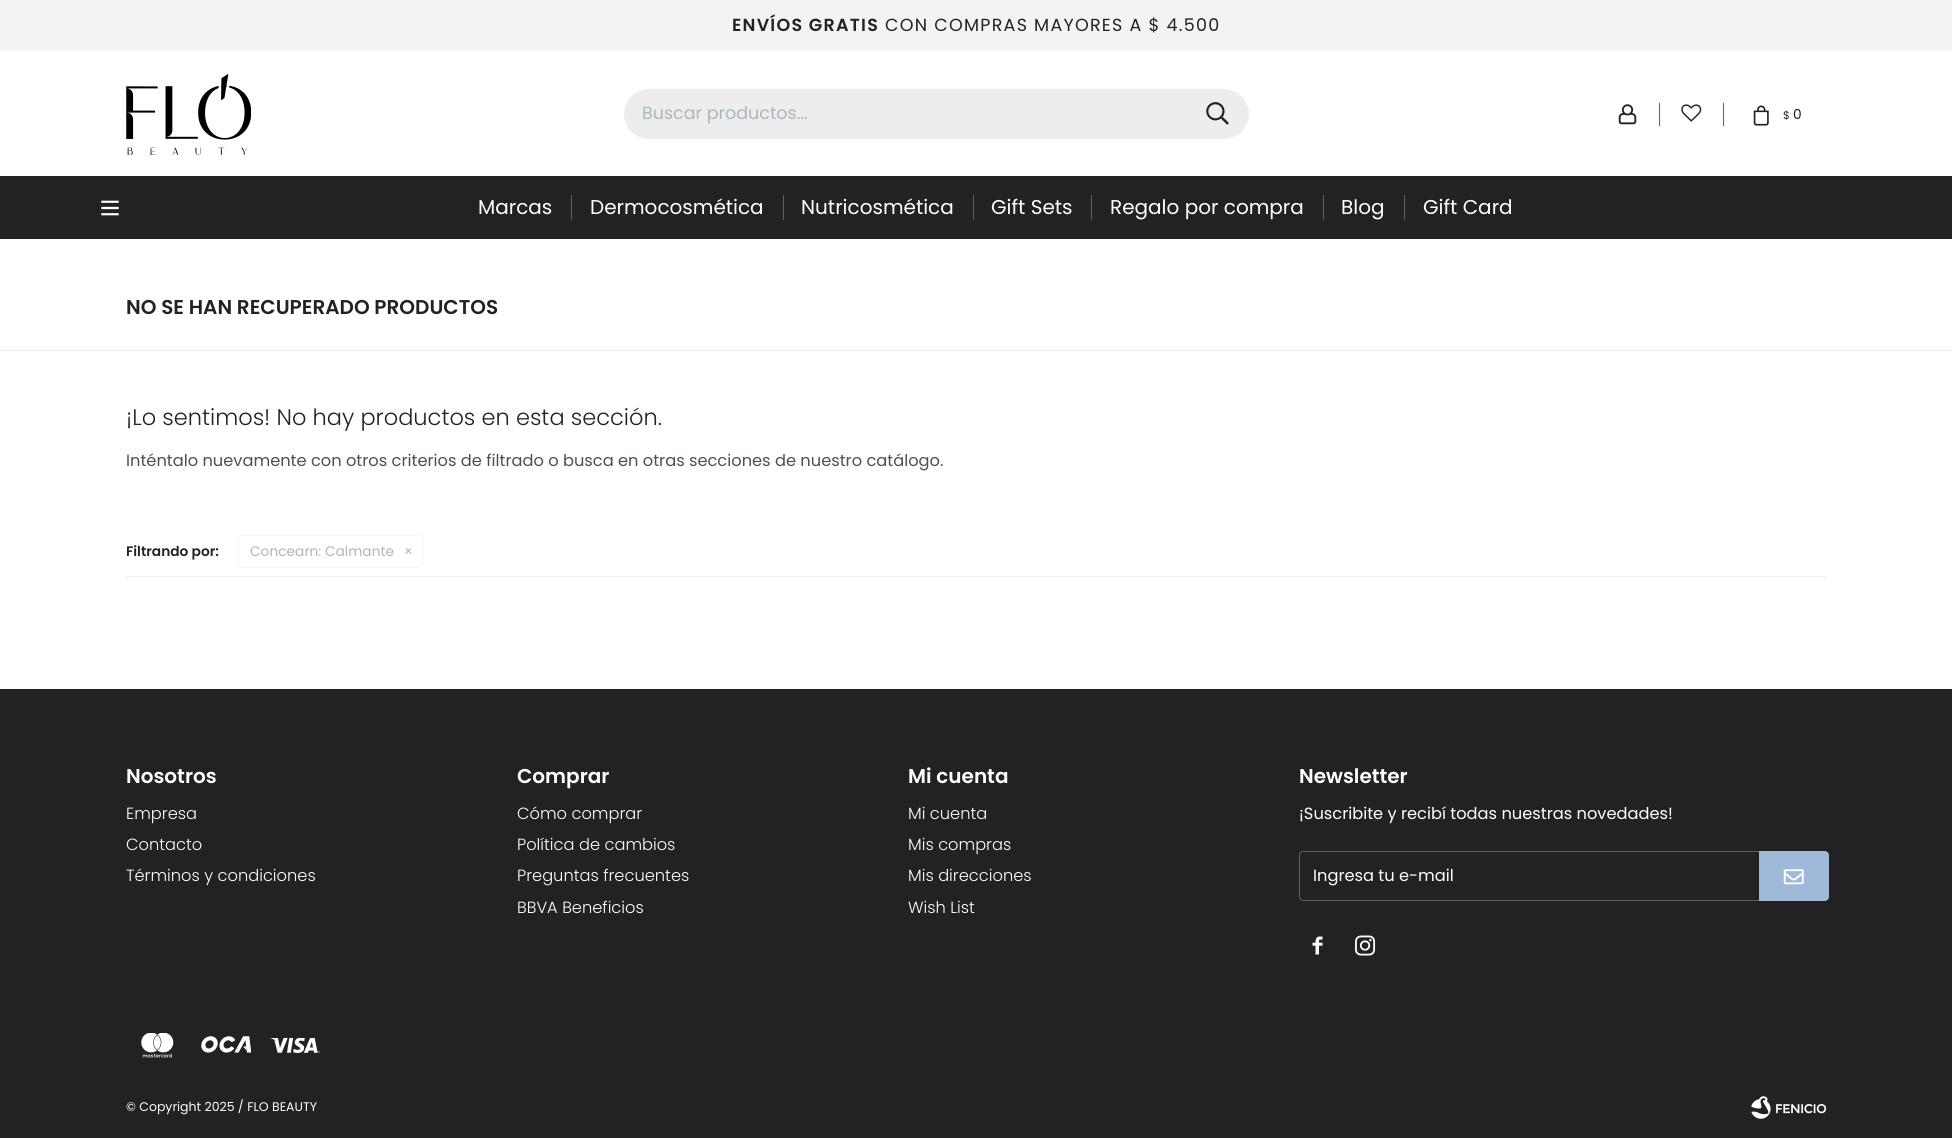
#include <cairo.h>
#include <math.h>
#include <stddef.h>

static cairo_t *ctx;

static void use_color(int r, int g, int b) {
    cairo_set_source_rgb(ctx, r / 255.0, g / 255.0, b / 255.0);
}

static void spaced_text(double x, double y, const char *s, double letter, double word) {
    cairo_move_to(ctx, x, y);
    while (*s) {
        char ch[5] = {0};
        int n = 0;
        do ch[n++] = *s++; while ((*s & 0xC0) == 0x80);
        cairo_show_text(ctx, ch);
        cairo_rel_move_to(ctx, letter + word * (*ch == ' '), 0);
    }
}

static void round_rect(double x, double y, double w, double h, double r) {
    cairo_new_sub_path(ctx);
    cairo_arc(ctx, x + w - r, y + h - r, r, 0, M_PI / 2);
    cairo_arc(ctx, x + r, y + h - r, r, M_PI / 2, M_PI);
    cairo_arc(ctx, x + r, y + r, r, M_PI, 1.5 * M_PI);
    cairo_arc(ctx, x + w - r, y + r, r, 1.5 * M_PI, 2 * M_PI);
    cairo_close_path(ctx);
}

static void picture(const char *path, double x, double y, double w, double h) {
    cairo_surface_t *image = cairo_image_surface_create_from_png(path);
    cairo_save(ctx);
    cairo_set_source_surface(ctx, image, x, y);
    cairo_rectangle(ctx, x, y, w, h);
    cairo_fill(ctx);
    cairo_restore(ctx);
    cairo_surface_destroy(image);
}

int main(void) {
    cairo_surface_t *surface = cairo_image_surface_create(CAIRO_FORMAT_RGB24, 1952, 1138);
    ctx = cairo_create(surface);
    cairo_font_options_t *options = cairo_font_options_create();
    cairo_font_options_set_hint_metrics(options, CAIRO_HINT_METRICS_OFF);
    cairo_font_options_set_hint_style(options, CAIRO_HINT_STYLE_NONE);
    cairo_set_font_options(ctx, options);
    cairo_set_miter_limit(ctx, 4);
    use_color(255, 255, 255);
    cairo_paint(ctx);
    use_color(242, 243, 243);
    cairo_rectangle(ctx, 0, 0, 1952, 51);
    cairo_fill(ctx);
    cairo_select_font_face(ctx, "Poppins SemiBold", CAIRO_FONT_SLANT_NORMAL, CAIRO_FONT_WEIGHT_NORMAL);
    cairo_set_font_size(ctx, 17.5);
    use_color(34, 34, 34);
    spaced_text(732, 31, "ENVÍOS GRATIS", 1.25, 0);
    cairo_select_font_face(ctx, "Poppins", CAIRO_FONT_SLANT_NORMAL, CAIRO_FONT_WEIGHT_NORMAL);
    spaced_text(885, 31, "CON COMPRAS MAYORES A $ 4.500", 1.25, 0);
    picture("img1.png", 126, 74, 125, 81);
    use_color(237, 237, 237);
    round_rect(624, 89, 625, 50, 25);
    cairo_fill(ctx);
    use_color(173, 181, 189);
    cairo_move_to(ctx, 642, 119);
    cairo_show_text(ctx, "Buscar productos...");
    picture("img2.png", 1206, 102, 23, 23);
    picture("img3.png", 1618, 104, 19, 21);
    use_color(95, 95, 96);
    cairo_rectangle(ctx, 1723, 103, 1, 23);
    cairo_fill(ctx);
    cairo_rectangle(ctx, 1659, 103, 1, 23);
    cairo_fill(ctx);
    picture("img4.png", 1681, 104, 21, 18);
    picture("img5.png", 1753, 105, 16, 21);
    cairo_set_font_size(ctx, 11);
    use_color(34, 34, 34);
    cairo_move_to(ctx, 1783, 119);
    cairo_show_text(ctx, "$");
    cairo_set_font_size(ctx, 13.75);
    cairo_move_to(ctx, 1793, 119);
    cairo_show_text(ctx, "0");
    cairo_rectangle(ctx, 0, 176, 1952, 63);
    cairo_fill(ctx);
    picture("img6.png", 101, 200, 18, 16);
    cairo_set_font_size(ctx, 20);
    use_color(255, 255, 255);
    cairo_move_to(ctx, 478, 214);
    cairo_show_text(ctx, "Marcas");
    use_color(95, 95, 96);
    cairo_rectangle(ctx, 571, 195, 1, 25);
    cairo_fill(ctx);
    use_color(255, 255, 255);
    cairo_move_to(ctx, 590, 214);
    cairo_show_text(ctx, "Dermocosmética");
    use_color(95, 95, 96);
    cairo_rectangle(ctx, 783, 195, 1, 25);
    cairo_fill(ctx);
    use_color(255, 255, 255);
    cairo_move_to(ctx, 801, 214);
    cairo_show_text(ctx, "Nutricosmética");
    use_color(95, 95, 96);
    cairo_rectangle(ctx, 973, 195, 1, 25);
    cairo_fill(ctx);
    use_color(255, 255, 255);
    cairo_move_to(ctx, 991, 214);
    cairo_show_text(ctx, "Gift Sets");
    use_color(95, 95, 96);
    cairo_rectangle(ctx, 1091, 195, 1, 25);
    cairo_fill(ctx);
    use_color(255, 255, 255);
    cairo_move_to(ctx, 1110, 214);
    cairo_show_text(ctx, "Regalo por compra");
    use_color(95, 95, 96);
    cairo_rectangle(ctx, 1323, 195, 1, 25);
    cairo_fill(ctx);
    use_color(255, 255, 255);
    cairo_move_to(ctx, 1341, 214);
    cairo_show_text(ctx, "Blog");
    use_color(95, 95, 96);
    cairo_rectangle(ctx, 1404, 195, 1, 25);
    cairo_fill(ctx);
    use_color(255, 255, 255);
    cairo_move_to(ctx, 1423, 214);
    cairo_show_text(ctx, "Gift Card");
    cairo_select_font_face(ctx, "Poppins SemiBold", CAIRO_FONT_SLANT_NORMAL, CAIRO_FONT_WEIGHT_NORMAL);
    use_color(34, 34, 34);
    cairo_move_to(ctx, 126, 314);
    cairo_show_text(ctx, "NO SE HAN RECUPERADO PRODUCTOS");
    use_color(237, 237, 237);
    cairo_rectangle(ctx, 0, 350, 1952, 1);
    cairo_fill(ctx);
    cairo_select_font_face(ctx, "Poppins Light", CAIRO_FONT_SLANT_NORMAL, CAIRO_FONT_WEIGHT_NORMAL);
    cairo_set_font_size(ctx, 22.5);
    use_color(34, 34, 34);
    cairo_move_to(ctx, 126, 425);
    cairo_show_text(ctx, "¡Lo sentimos! No hay productos en esta sección.");
    cairo_select_font_face(ctx, "Poppins", CAIRO_FONT_SLANT_NORMAL, CAIRO_FONT_WEIGHT_NORMAL);
    cairo_set_font_size(ctx, 16.25);
    use_color(73, 80, 87);
    cairo_move_to(ctx, 126, 466);
    cairo_show_text(ctx, "Inténtalo nuevamente con otros criterios de filtrado o busca en otras secciones de nuestro catálogo.");
    use_color(237, 237, 237);
    cairo_rectangle(ctx, 126, 576, 1700, 1);
    cairo_fill(ctx);
    cairo_select_font_face(ctx, "Poppins SemiBold", CAIRO_FONT_SLANT_NORMAL, CAIRO_FONT_WEIGHT_NORMAL);
    cairo_set_font_size(ctx, 13.75);
    use_color(34, 34, 34);
    cairo_move_to(ctx, 126, 556);
    cairo_show_text(ctx, "Filtrando por:");
    round_rect(238.5, 535.5, 185, 32, 3.5);
    use_color(246, 246, 246);
    cairo_set_line_width(ctx, 1);
    cairo_stroke(ctx);
    cairo_select_font_face(ctx, "Poppins", CAIRO_FONT_SLANT_NORMAL, CAIRO_FONT_WEIGHT_NORMAL);
    use_color(173, 181, 189);
    cairo_move_to(ctx, 250, 556);
    cairo_show_text(ctx, "Concearn: Calmante");
    cairo_move_to(ctx, 404, 556);
    cairo_show_text(ctx, "×");
    use_color(34, 34, 34);
    cairo_rectangle(ctx, 0, 689, 1952, 449);
    cairo_fill(ctx);
    cairo_select_font_face(ctx, "Poppins SemiBold", CAIRO_FONT_SLANT_NORMAL, CAIRO_FONT_WEIGHT_NORMAL);
    cairo_set_font_size(ctx, 20);
    use_color(255, 255, 255);
    cairo_move_to(ctx, 126, 783);
    cairo_show_text(ctx, "Nosotros");
    cairo_select_font_face(ctx, "Poppins Light", CAIRO_FONT_SLANT_NORMAL, CAIRO_FONT_WEIGHT_NORMAL);
    cairo_set_font_size(ctx, 16.25);
    cairo_move_to(ctx, 126, 819);
    cairo_show_text(ctx, "Empresa");
    cairo_move_to(ctx, 126, 850);
    cairo_show_text(ctx, "Contacto");
    cairo_move_to(ctx, 126, 881);
    cairo_show_text(ctx, "Términos y condiciones");
    cairo_select_font_face(ctx, "Poppins SemiBold", CAIRO_FONT_SLANT_NORMAL, CAIRO_FONT_WEIGHT_NORMAL);
    cairo_set_font_size(ctx, 20);
    cairo_move_to(ctx, 517, 783);
    cairo_show_text(ctx, "Comprar");
    cairo_select_font_face(ctx, "Poppins Light", CAIRO_FONT_SLANT_NORMAL, CAIRO_FONT_WEIGHT_NORMAL);
    cairo_set_font_size(ctx, 16.25);
    cairo_move_to(ctx, 517, 819);
    cairo_show_text(ctx, "Cómo comprar");
    cairo_move_to(ctx, 517, 850);
    cairo_show_text(ctx, "Política de cambios");
    cairo_move_to(ctx, 517, 881);
    cairo_show_text(ctx, "Preguntas frecuentes");
    cairo_move_to(ctx, 517, 913);
    cairo_show_text(ctx, "BBVA Beneficios");
    cairo_select_font_face(ctx, "Poppins SemiBold", CAIRO_FONT_SLANT_NORMAL, CAIRO_FONT_WEIGHT_NORMAL);
    cairo_set_font_size(ctx, 20);
    cairo_move_to(ctx, 908, 783);
    cairo_show_text(ctx, "Mi cuenta");
    cairo_select_font_face(ctx, "Poppins Light", CAIRO_FONT_SLANT_NORMAL, CAIRO_FONT_WEIGHT_NORMAL);
    cairo_set_font_size(ctx, 16.25);
    cairo_move_to(ctx, 908, 819);
    cairo_show_text(ctx, "Mi cuenta");
    cairo_move_to(ctx, 908, 850);
    cairo_show_text(ctx, "Mis compras");
    cairo_move_to(ctx, 908, 881);
    cairo_show_text(ctx, "Mis direcciones");
    cairo_move_to(ctx, 908, 913);
    cairo_show_text(ctx, "Wish List");
    cairo_select_font_face(ctx, "Poppins SemiBold", CAIRO_FONT_SLANT_NORMAL, CAIRO_FONT_WEIGHT_NORMAL);
    cairo_set_font_size(ctx, 20);
    cairo_move_to(ctx, 1299, 783);
    cairo_show_text(ctx, "Newsletter");
    cairo_select_font_face(ctx, "Poppins", CAIRO_FONT_SLANT_NORMAL, CAIRO_FONT_WEIGHT_NORMAL);
    cairo_set_font_size(ctx, 16.25);
    cairo_move_to(ctx, 1299, 819);
    cairo_show_text(ctx, "¡Suscribite y recibí todas nuestras novedades!");
    round_rect(1299.5, 851.5, 526, 49, 3.5);
    use_color(95, 95, 96);
    cairo_stroke(ctx);
    use_color(255, 255, 255);
    cairo_move_to(ctx, 1313, 881);
    cairo_show_text(ctx, "Ingresa tu e-mail");
    use_color(158, 186, 216);
    cairo_new_path(ctx);
    cairo_move_to(ctx, 1759, 851);
    cairo_line_to(ctx, 1825, 851);
    cairo_curve_to(ctx, 1827, 851, 1829, 853, 1829, 855);
    cairo_line_to(ctx, 1829, 897);
    cairo_curve_to(ctx, 1829, 899, 1827, 901, 1825, 901);
    cairo_line_to(ctx, 1759, 901);
    cairo_close_path(ctx);
    cairo_fill(ctx);
    picture("img7.png", 1783, 869, 21, 16);
    picture("img8.png", 1312, 936, 11, 19);
    picture("img9.png", 1355, 935, 21, 21);
    picture("img10.png", 141, 1033, 33, 25);
    picture("img11.png", 201, 1036, 50, 17);
    picture("img12.png", 270, 1038, 50, 15);
    cairo_set_font_size(ctx, 12.5);
    use_color(255, 255, 255);
    cairo_move_to(ctx, 126, 1111);
    cairo_show_text(ctx, "© Copyright 2025 / FLO BEAUTY");
    picture("img13.png", 1751, 1096, 75, 23);
    cairo_surface_write_to_png(surface, "result.png");
    cairo_font_options_destroy(options);
    cairo_destroy(ctx);
    cairo_surface_destroy(surface);
    return 0;
}
